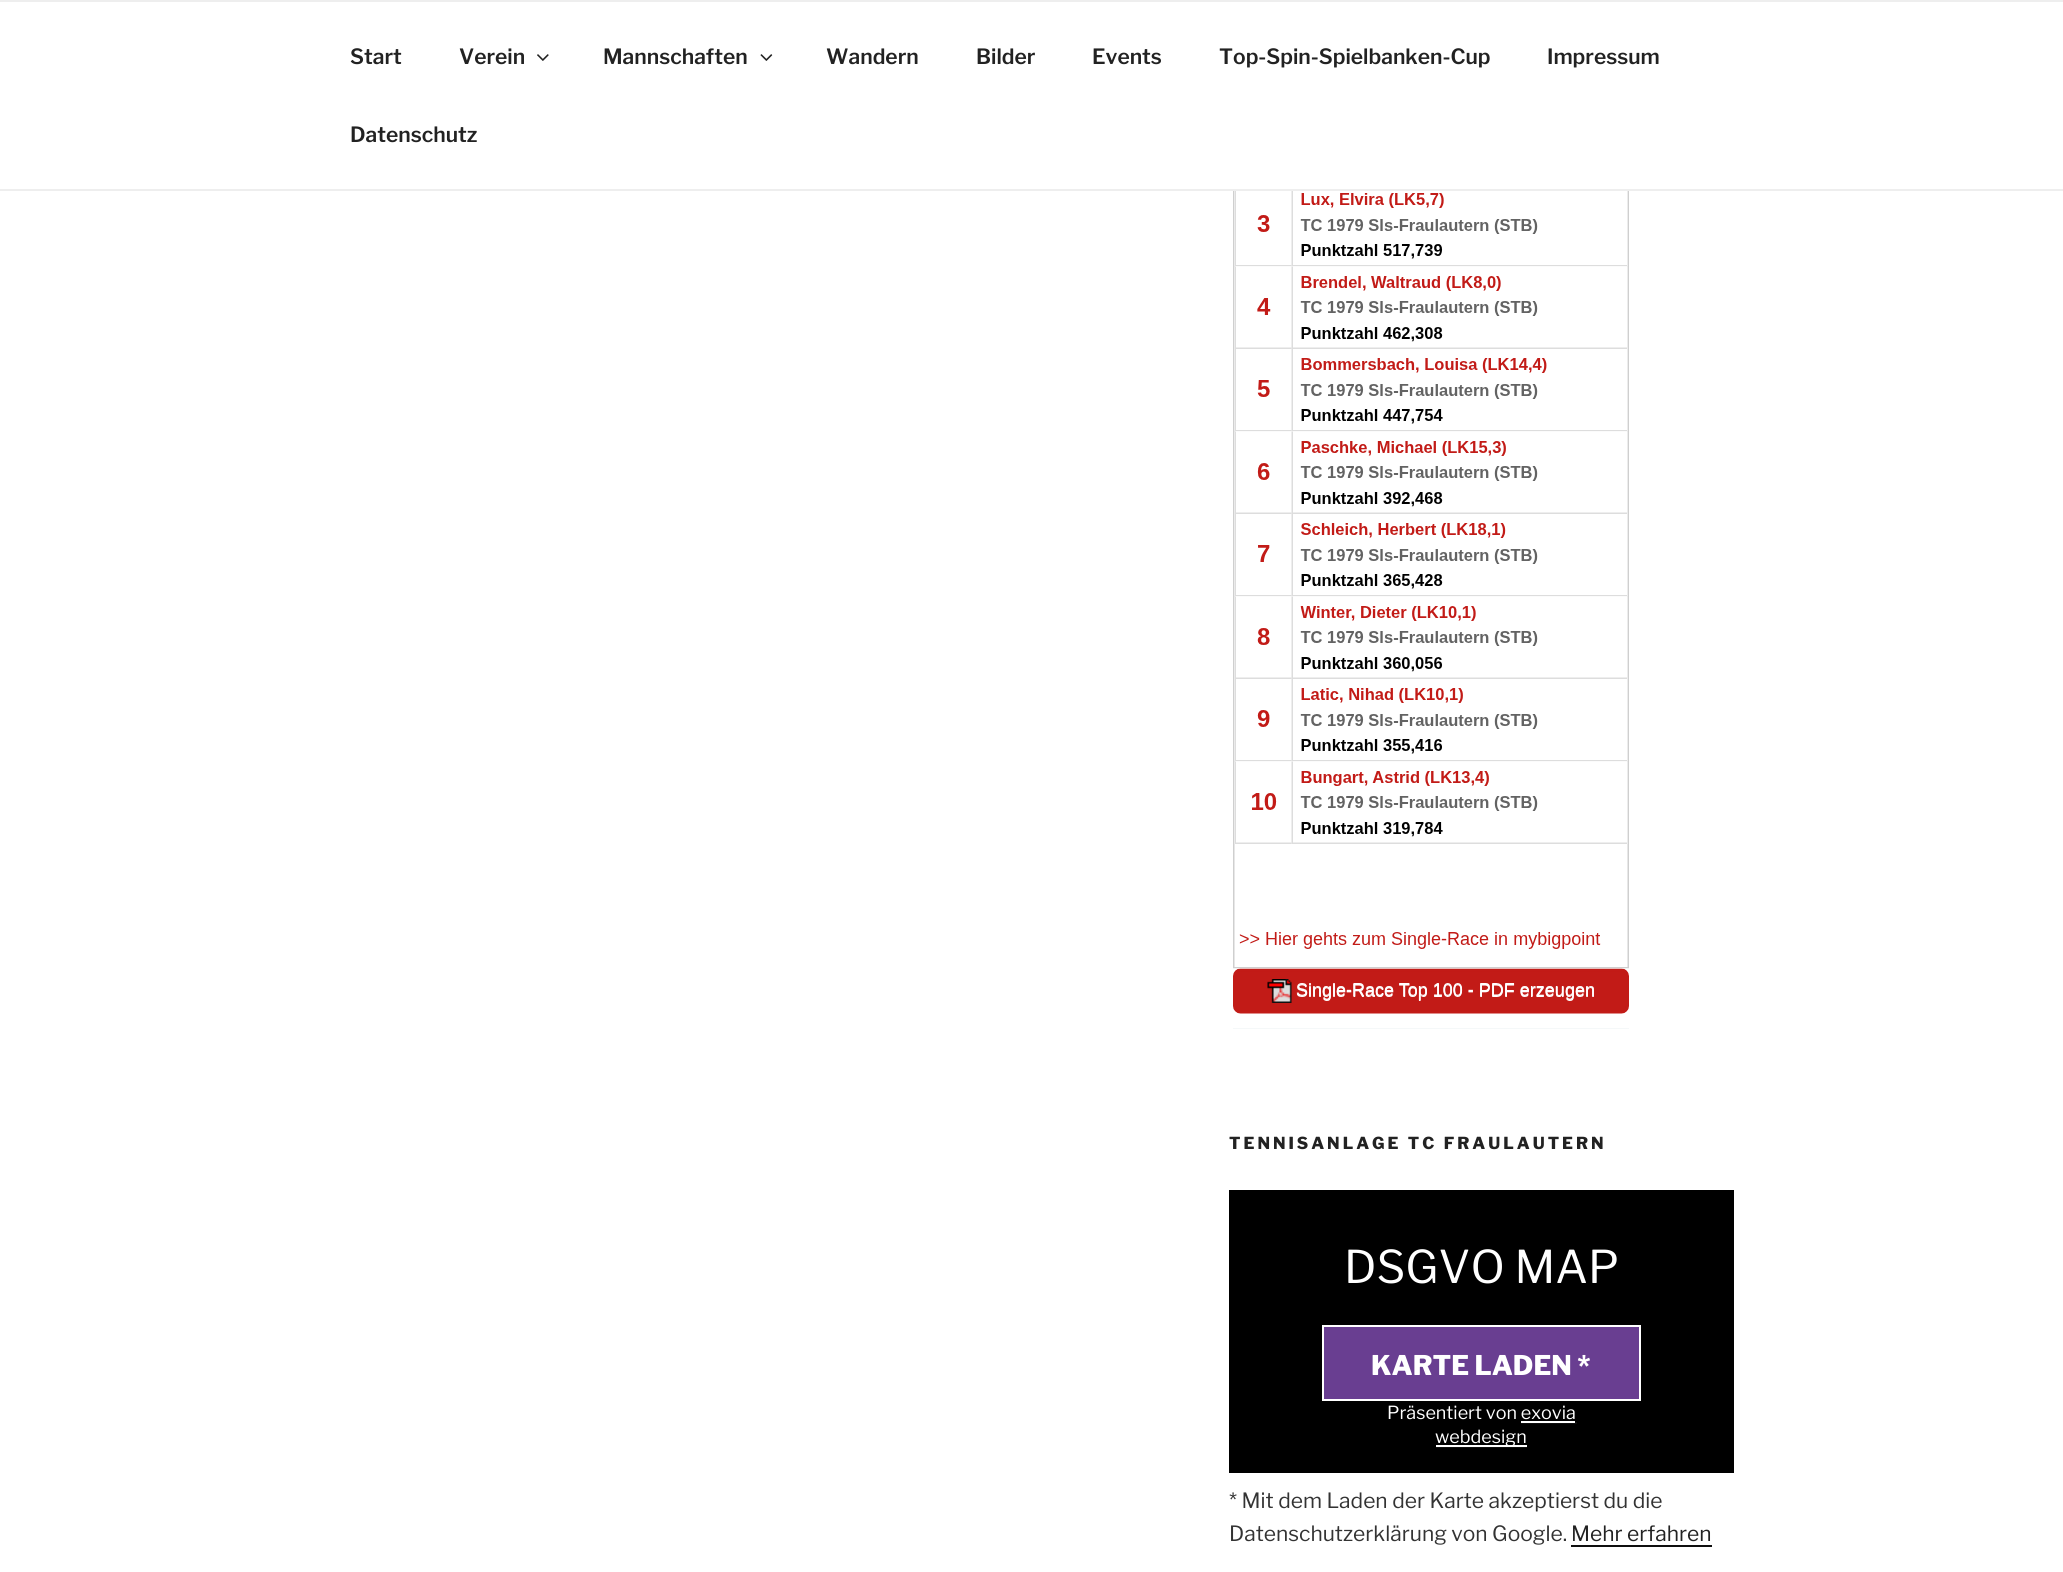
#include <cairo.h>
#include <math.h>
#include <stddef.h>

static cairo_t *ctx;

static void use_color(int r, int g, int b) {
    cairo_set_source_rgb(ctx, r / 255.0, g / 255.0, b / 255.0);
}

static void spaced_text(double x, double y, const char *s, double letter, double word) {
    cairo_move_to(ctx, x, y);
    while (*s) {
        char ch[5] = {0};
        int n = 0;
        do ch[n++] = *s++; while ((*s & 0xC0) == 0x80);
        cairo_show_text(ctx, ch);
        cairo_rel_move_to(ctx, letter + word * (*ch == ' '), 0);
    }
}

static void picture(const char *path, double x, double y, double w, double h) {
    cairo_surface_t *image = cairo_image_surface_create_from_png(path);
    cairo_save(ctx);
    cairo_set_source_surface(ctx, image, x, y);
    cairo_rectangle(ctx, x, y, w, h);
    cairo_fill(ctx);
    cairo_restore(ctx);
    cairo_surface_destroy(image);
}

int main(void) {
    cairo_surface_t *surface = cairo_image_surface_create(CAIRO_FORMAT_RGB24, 2063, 1572);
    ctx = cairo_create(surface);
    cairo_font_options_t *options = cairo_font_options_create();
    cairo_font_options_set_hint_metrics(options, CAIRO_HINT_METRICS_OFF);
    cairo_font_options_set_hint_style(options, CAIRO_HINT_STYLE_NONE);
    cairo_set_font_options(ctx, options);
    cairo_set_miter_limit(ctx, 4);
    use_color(255, 255, 255);
    cairo_paint(ctx);
    use_color(238, 238, 238);
    cairo_rectangle(ctx, 0, 0, 2063, 2);
    cairo_fill(ctx);
    cairo_rectangle(ctx, 0, 189, 2063, 2);
    cairo_fill(ctx);
    cairo_select_font_face(ctx, "Libre Franklin SemiBold", CAIRO_FONT_SLANT_NORMAL, CAIRO_FONT_WEIGHT_NORMAL);
    cairo_set_font_size(ctx, 21);
    use_color(34, 34, 34);
    cairo_move_to(ctx, 350, 64);
    cairo_show_text(ctx, "Start");
    cairo_move_to(ctx, 459, 64);
    cairo_show_text(ctx, "Verein");
    picture("img1.png", 537, 54, 12, 7);
    cairo_move_to(ctx, 603, 64);
    cairo_show_text(ctx, "Mannschaften");
    picture("img2.png", 760, 54, 13, 7);
    cairo_move_to(ctx, 826, 64);
    cairo_show_text(ctx, "Wandern");
    cairo_move_to(ctx, 976, 64);
    cairo_show_text(ctx, "Bilder");
    cairo_move_to(ctx, 1092, 64);
    cairo_show_text(ctx, "Events");
    cairo_move_to(ctx, 1219, 64);
    cairo_show_text(ctx, "Top-Spin-Spielbanken-Cup");
    cairo_move_to(ctx, 1547, 64);
    cairo_show_text(ctx, "Impressum");
    cairo_move_to(ctx, 350, 142);
    cairo_show_text(ctx, "Datenschutz");
    picture("img3.png", 1233, 191, 396, 838);
    cairo_select_font_face(ctx, "Libre Franklin ExtraBold", CAIRO_FONT_SLANT_NORMAL, CAIRO_FONT_WEIGHT_NORMAL);
    cairo_set_font_size(ctx, 16.5);
    spaced_text(1229, 1149, "TENNISANLAGE TC FRAULAUTERN", 3, 0);
    use_color(0, 0, 0);
    cairo_rectangle(ctx, 1229, 1190, 505, 283);
    cairo_fill(ctx);
    cairo_select_font_face(ctx, "Libre Franklin", CAIRO_FONT_SLANT_NORMAL, CAIRO_FONT_WEIGHT_NORMAL);
    cairo_set_font_size(ctx, 45);
    use_color(255, 255, 255);
    cairo_move_to(ctx, 1344, 1283);
    cairo_show_text(ctx, "DSGVO MAP");
    use_color(105, 62, 145);
    cairo_rectangle(ctx, 1323, 1326, 317, 74);
    cairo_fill_preserve(ctx);
    use_color(255, 255, 255);
    cairo_stroke(ctx);
    cairo_select_font_face(ctx, "Libre Franklin ExtraBold", CAIRO_FONT_SLANT_NORMAL, CAIRO_FONT_WEIGHT_NORMAL);
    cairo_set_font_size(ctx, 27);
    cairo_move_to(ctx, 1371, 1375);
    cairo_show_text(ctx, "KARTE LADEN *");
    cairo_select_font_face(ctx, "Libre Franklin", CAIRO_FONT_SLANT_NORMAL, CAIRO_FONT_WEIGHT_NORMAL);
    cairo_set_font_size(ctx, 18);
    cairo_move_to(ctx, 1387, 1419);
    cairo_show_text(ctx, "Präsentiert von exovia");
    cairo_rectangle(ctx, 1436, 1445, 91, 2);
    cairo_fill(ctx);
    cairo_move_to(ctx, 1435, 1443);
    cairo_show_text(ctx, "webdesign");
    use_color(15, 15, 15);
    cairo_rectangle(ctx, 1521, 1422, 56, 2);
    cairo_fill(ctx);
    cairo_rectangle(ctx, 1436, 1447, 91, 1);
    cairo_fill(ctx);
    use_color(255, 255, 255);
    cairo_rectangle(ctx, 1521, 1421, 54, 2);
    cairo_fill(ctx);
    cairo_set_font_size(ctx, 21);
    use_color(51, 51, 51);
    cairo_move_to(ctx, 1229, 1508);
    cairo_show_text(ctx, "* Mit dem Laden der Karte akzeptierst du die");
    cairo_move_to(ctx, 1229, 1541);
    cairo_show_text(ctx, "Datenschutzerklärung von Google.");
    use_color(34, 34, 34);
    cairo_move_to(ctx, 1571, 1541);
    cairo_show_text(ctx, "Mehr erfahren");
    use_color(15, 15, 15);
    cairo_rectangle(ctx, 1571, 1545, 141, 2);
    cairo_fill(ctx);
    cairo_surface_write_to_png(surface, "result.png");
    cairo_font_options_destroy(options);
    cairo_destroy(ctx);
    cairo_surface_destroy(surface);
    return 0;
}
